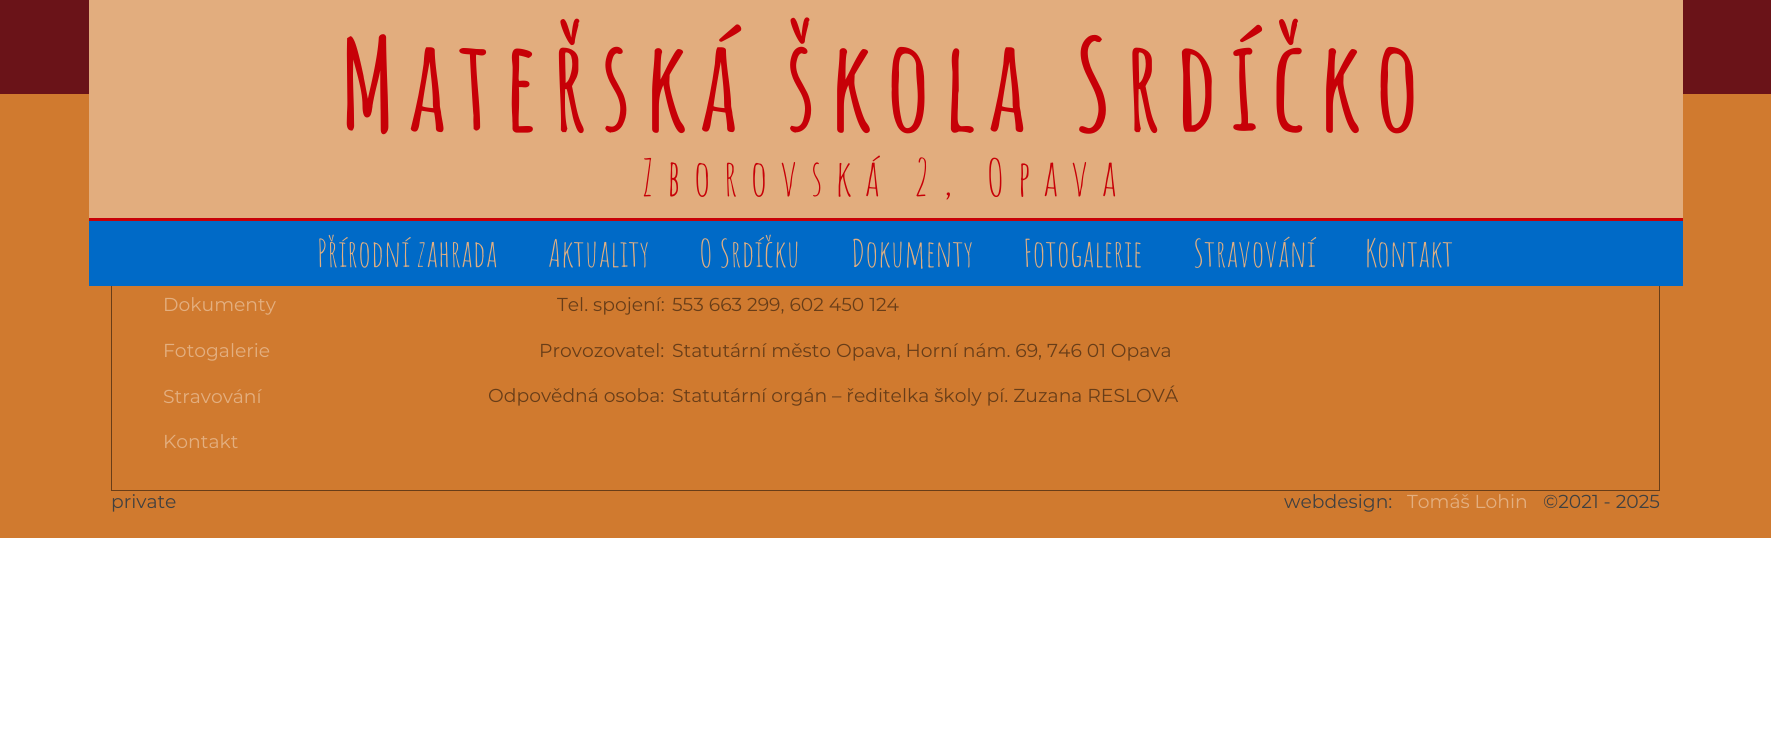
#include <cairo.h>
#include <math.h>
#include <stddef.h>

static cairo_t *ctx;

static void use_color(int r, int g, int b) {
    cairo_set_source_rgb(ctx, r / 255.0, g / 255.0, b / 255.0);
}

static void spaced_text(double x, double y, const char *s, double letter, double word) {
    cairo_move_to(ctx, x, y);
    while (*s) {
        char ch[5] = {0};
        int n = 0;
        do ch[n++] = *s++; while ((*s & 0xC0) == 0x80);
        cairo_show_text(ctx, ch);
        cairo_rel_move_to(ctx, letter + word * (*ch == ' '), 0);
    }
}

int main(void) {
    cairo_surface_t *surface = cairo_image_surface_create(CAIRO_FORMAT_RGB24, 1771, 738);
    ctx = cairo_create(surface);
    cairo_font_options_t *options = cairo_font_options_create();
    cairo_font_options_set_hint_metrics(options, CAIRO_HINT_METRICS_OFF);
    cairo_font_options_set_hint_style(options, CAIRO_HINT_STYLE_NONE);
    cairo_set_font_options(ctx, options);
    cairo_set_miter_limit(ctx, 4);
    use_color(255, 255, 255);
    cairo_paint(ctx);
    use_color(106, 19, 24);
    cairo_rectangle(ctx, 0, 0, 1771, 94);
    cairo_fill(ctx);
    use_color(208, 122, 47);
    cairo_rectangle(ctx, 0, 94, 1771, 444);
    cairo_fill(ctx);
    cairo_rectangle(ctx, 111.5, 120.5, 1548, 370);
    use_color(104, 61, 24);
    cairo_set_line_width(ctx, 1);
    cairo_stroke(ctx);
    use_color(226, 173, 126);
    cairo_rectangle(ctx, 89, 0, 1594, 218);
    cairo_fill(ctx);
    cairo_select_font_face(ctx, "Amatic SC", CAIRO_FONT_SLANT_NORMAL, CAIRO_FONT_WEIGHT_BOLD);
    cairo_set_font_size(ctx, 125);
    use_color(199, 0, 7);
    spaced_text(340, 131, "Mateřská škola Srdíčko", 12.5, 0);
    cairo_select_font_face(ctx, "Amatic SC", CAIRO_FONT_SLANT_NORMAL, CAIRO_FONT_WEIGHT_NORMAL);
    cairo_set_font_size(ctx, 50);
    spaced_text(642, 196, "Zborovská 2, Opava", 12.5, 0);
    use_color(0, 106, 199);
    cairo_rectangle(ctx, 89, 221, 1594, 65);
    cairo_fill(ctx);
    use_color(199, 0, 7);
    cairo_rectangle(ctx, 89, 218, 1594, 3);
    cairo_fill(ctx);
    cairo_set_font_size(ctx, 37.5);
    use_color(227, 175, 128);
    cairo_move_to(ctx, 317, 267);
    cairo_show_text(ctx, "Přírodní zahrada");
    cairo_move_to(ctx, 548, 267);
    cairo_show_text(ctx, "Aktuality");
    cairo_move_to(ctx, 699, 267);
    cairo_show_text(ctx, "O Srdíčku");
    cairo_move_to(ctx, 851, 267);
    cairo_show_text(ctx, "Dokumenty");
    cairo_move_to(ctx, 1023, 267);
    cairo_show_text(ctx, "Fotogalerie");
    cairo_move_to(ctx, 1193, 267);
    cairo_show_text(ctx, "Stravování");
    cairo_move_to(ctx, 1365, 267);
    cairo_show_text(ctx, "Kontakt");
    cairo_select_font_face(ctx, "Montserrat", CAIRO_FONT_SLANT_NORMAL, CAIRO_FONT_WEIGHT_NORMAL);
    cairo_set_font_size(ctx, 18.75);
    cairo_move_to(ctx, 163, 311);
    cairo_show_text(ctx, "Dokumenty");
    cairo_move_to(ctx, 163, 357);
    cairo_show_text(ctx, "Fotogalerie");
    cairo_move_to(ctx, 163, 403);
    cairo_show_text(ctx, "Stravování");
    cairo_move_to(ctx, 163, 448);
    cairo_show_text(ctx, "Kontakt");
    use_color(104, 61, 24);
    cairo_move_to(ctx, 557, 311);
    cairo_show_text(ctx, "Tel. spojení:");
    cairo_move_to(ctx, 672, 311);
    cairo_show_text(ctx, "553 663 299, 602 450 124");
    cairo_move_to(ctx, 539, 357);
    cairo_show_text(ctx, "Provozovatel:");
    cairo_move_to(ctx, 672, 357);
    cairo_show_text(ctx, "Statutární město Opava, Horní nám. 69, 746 01 Opava");
    cairo_move_to(ctx, 488, 402);
    cairo_show_text(ctx, "Odpovědná osoba:");
    cairo_move_to(ctx, 672, 402);
    cairo_show_text(ctx, "Statutární orgán – ředitelka školy pí. Zuzana RESLOVÁ");
    use_color(64, 64, 64);
    cairo_move_to(ctx, 111, 508);
    cairo_show_text(ctx, "private");
    cairo_move_to(ctx, 1284, 508);
    cairo_show_text(ctx, "webdesign:");
    use_color(227, 175, 128);
    cairo_move_to(ctx, 1407, 508);
    cairo_show_text(ctx, "Tomáš Lohin");
    use_color(64, 64, 64);
    cairo_move_to(ctx, 1543, 508);
    cairo_show_text(ctx, "©2021 - 2025");
    cairo_surface_write_to_png(surface, "result.png");
    cairo_font_options_destroy(options);
    cairo_destroy(ctx);
    cairo_surface_destroy(surface);
    return 0;
}
